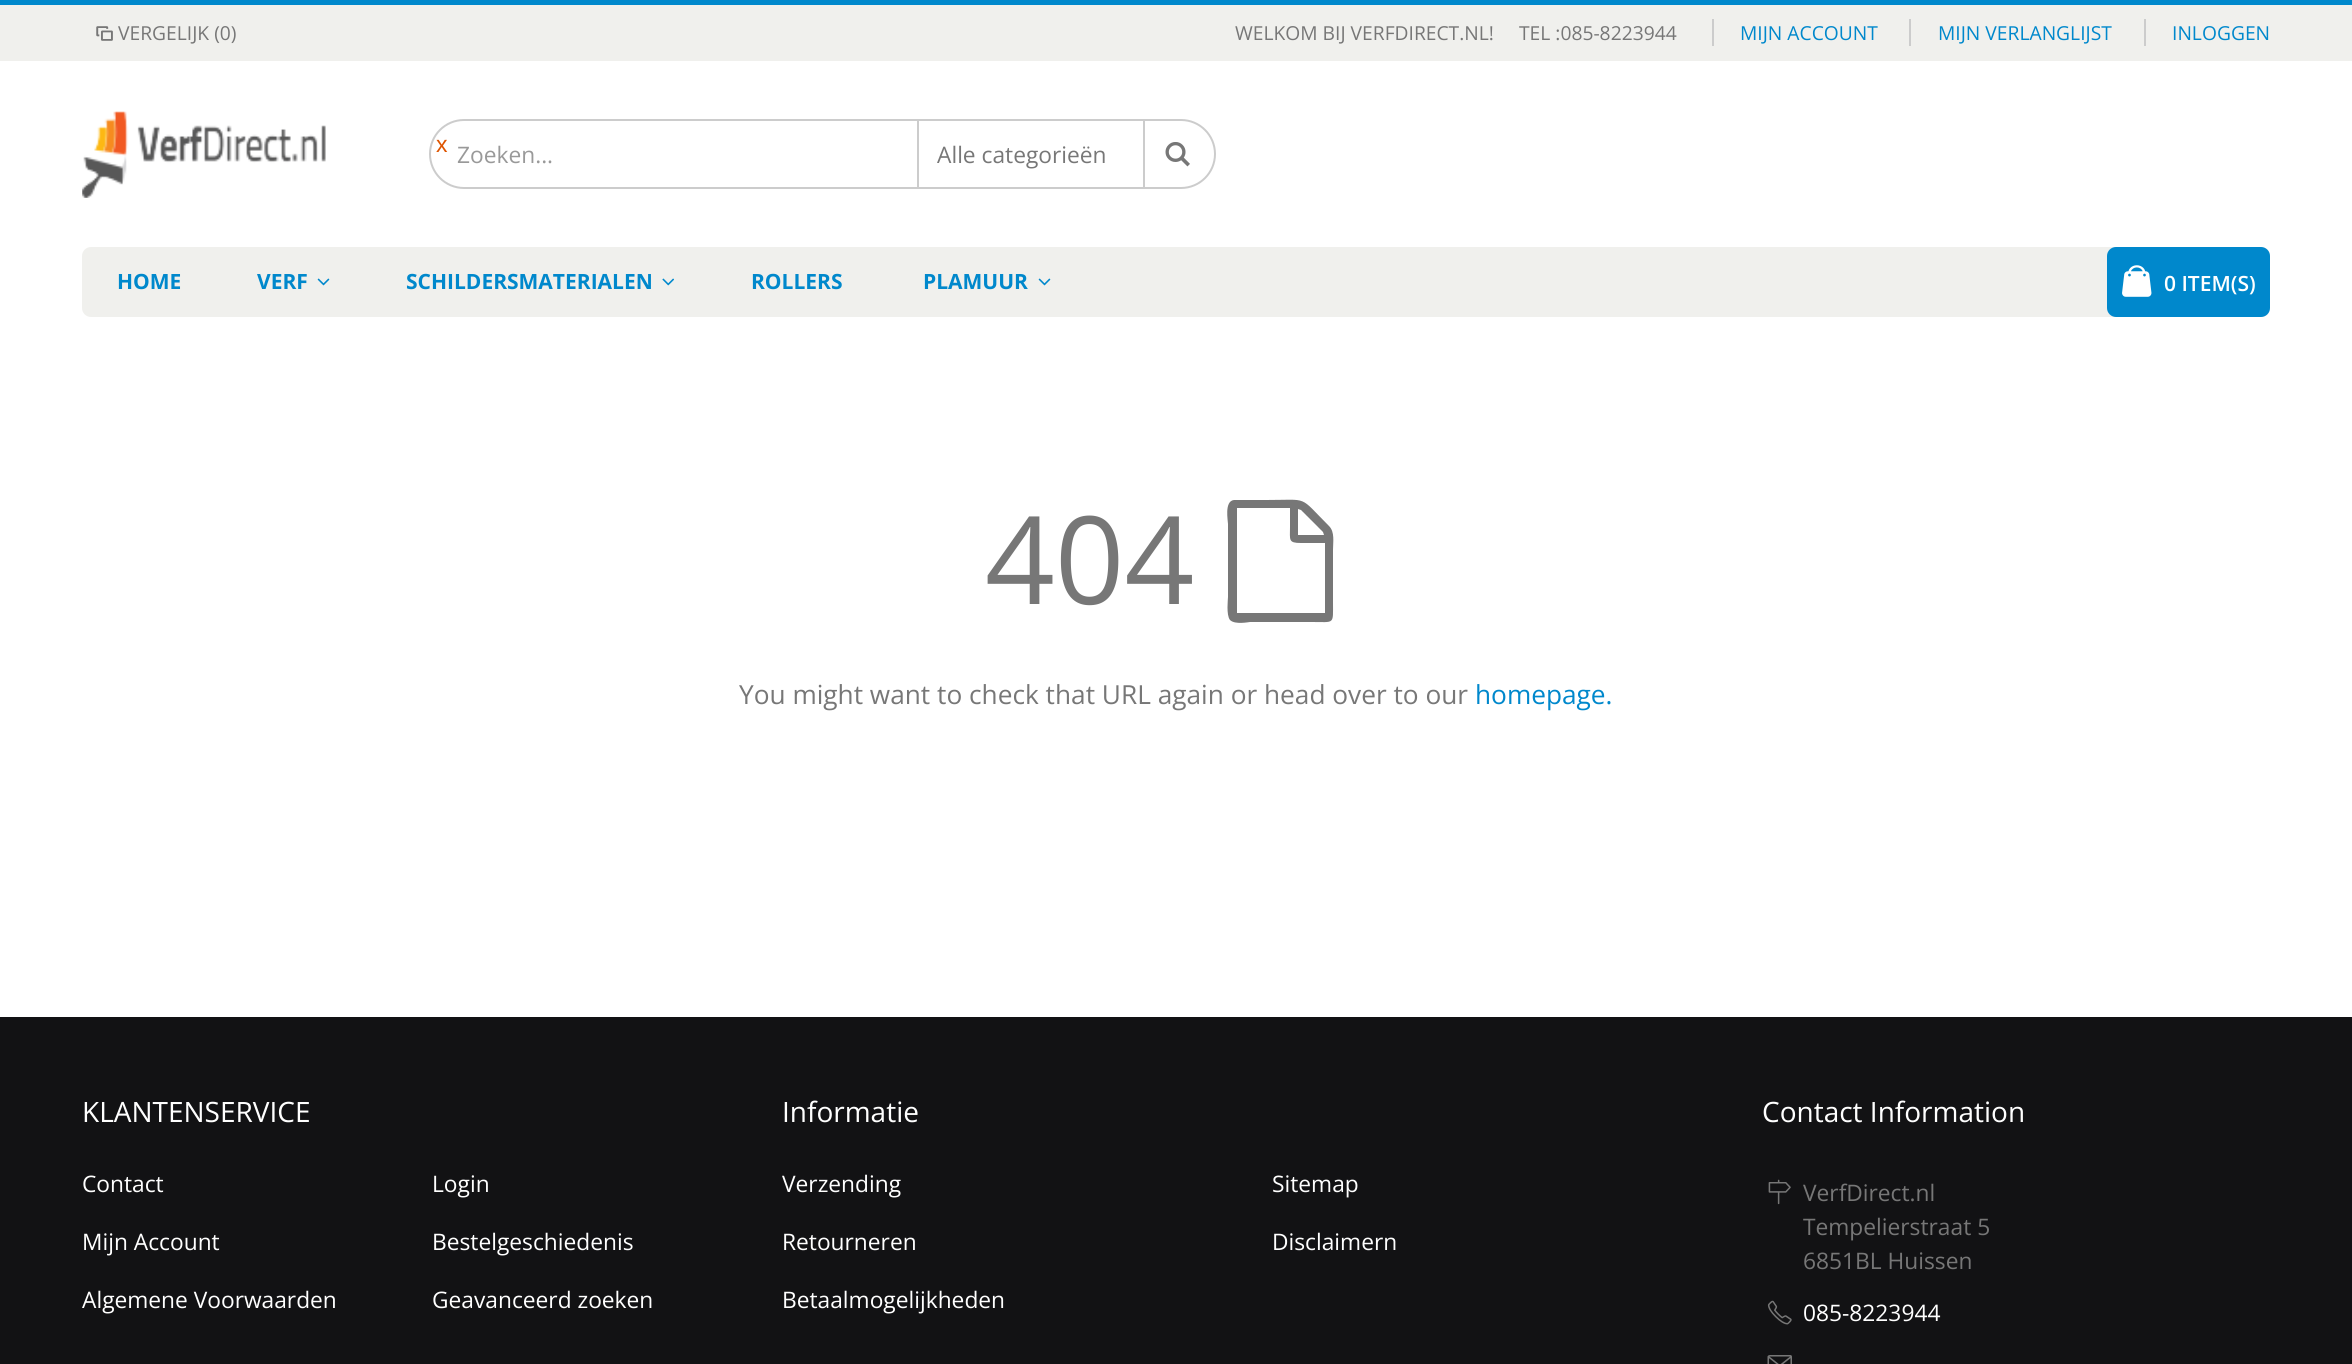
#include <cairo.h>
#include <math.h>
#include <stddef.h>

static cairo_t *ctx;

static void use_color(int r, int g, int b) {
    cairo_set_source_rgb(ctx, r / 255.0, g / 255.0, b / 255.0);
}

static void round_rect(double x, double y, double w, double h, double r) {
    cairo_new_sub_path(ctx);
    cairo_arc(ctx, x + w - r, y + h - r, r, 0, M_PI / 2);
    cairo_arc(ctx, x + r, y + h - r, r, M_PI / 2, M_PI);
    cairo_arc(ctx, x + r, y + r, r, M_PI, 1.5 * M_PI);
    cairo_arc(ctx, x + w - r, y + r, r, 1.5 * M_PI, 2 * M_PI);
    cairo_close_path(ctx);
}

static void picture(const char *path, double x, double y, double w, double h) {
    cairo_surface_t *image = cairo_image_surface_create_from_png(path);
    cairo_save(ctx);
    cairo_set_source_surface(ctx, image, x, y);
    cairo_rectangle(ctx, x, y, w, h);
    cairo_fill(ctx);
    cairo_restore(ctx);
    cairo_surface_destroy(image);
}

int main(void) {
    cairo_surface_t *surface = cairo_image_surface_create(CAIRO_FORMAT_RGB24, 2352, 1364);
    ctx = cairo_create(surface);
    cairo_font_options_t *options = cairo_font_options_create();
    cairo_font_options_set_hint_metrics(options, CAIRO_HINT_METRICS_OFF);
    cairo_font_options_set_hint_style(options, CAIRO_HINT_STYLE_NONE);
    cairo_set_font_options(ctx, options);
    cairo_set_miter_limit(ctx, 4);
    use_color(255, 255, 255);
    cairo_paint(ctx);
    use_color(0, 136, 204);
    cairo_rectangle(ctx, 0, 0, 2352, 5);
    cairo_fill(ctx);
    use_color(240, 240, 237);
    cairo_rectangle(ctx, 0, 5, 2352, 56);
    cairo_fill(ctx);
    picture("img1.png", 96, 26, 17, 15);
    cairo_select_font_face(ctx, "Open Sans", CAIRO_FONT_SLANT_NORMAL, CAIRO_FONT_WEIGHT_NORMAL);
    cairo_set_font_size(ctx, 19.25);
    use_color(119, 119, 119);
    cairo_move_to(ctx, 118, 40);
    cairo_show_text(ctx, "VERGELIJK (0)");
    cairo_move_to(ctx, 1235, 40);
    cairo_show_text(ctx, "WELKOM BIJ VERFDIRECT.NL!");
    cairo_move_to(ctx, 1519, 40);
    cairo_show_text(ctx, "TEL :085-8223944");
    use_color(0, 136, 204);
    cairo_move_to(ctx, 1740, 40);
    cairo_show_text(ctx, "MIJN ACCOUNT");
    use_color(204, 204, 204);
    cairo_rectangle(ctx, 1712, 19, 2, 27);
    cairo_fill(ctx);
    use_color(0, 136, 204);
    cairo_move_to(ctx, 1938, 40);
    cairo_show_text(ctx, "MIJN VERLANGLIJST");
    use_color(204, 204, 204);
    cairo_rectangle(ctx, 1909, 19, 2, 27);
    cairo_fill(ctx);
    use_color(0, 136, 204);
    cairo_move_to(ctx, 2172, 40);
    cairo_show_text(ctx, "INLOGGEN");
    use_color(204, 204, 204);
    cairo_rectangle(ctx, 2144, 19, 2, 27);
    cairo_fill(ctx);
    picture("img2.png", 82, 111, 244, 87);
    round_rect(430, 120, 785, 68, 34);
    cairo_stroke(ctx);
    cairo_select_font_face(ctx, "Liberation Sans", CAIRO_FONT_SLANT_NORMAL, CAIRO_FONT_WEIGHT_NORMAL);
    cairo_set_font_size(ctx, 23);
    use_color(222, 84, 0);
    cairo_move_to(ctx, 436, 152);
    cairo_show_text(ctx, "x");
    cairo_select_font_face(ctx, "Open Sans", CAIRO_FONT_SLANT_NORMAL, CAIRO_FONT_WEIGHT_NORMAL);
    cairo_set_font_size(ctx, 22.75);
    use_color(153, 153, 153);
    cairo_move_to(ctx, 457, 163);
    cairo_show_text(ctx, "Zoeken...");
    use_color(204, 204, 204);
    cairo_rectangle(ctx, 1143, 121, 2, 66);
    cairo_fill(ctx);
    cairo_rectangle(ctx, 917, 121, 2, 66);
    cairo_fill(ctx);
    use_color(119, 119, 119);
    cairo_move_to(ctx, 937, 163);
    cairo_show_text(ctx, "Alle categorieën");
    picture("img3.png", 1165, 142, 25, 25);
    use_color(240, 240, 237);
    round_rect(82, 247, 2188, 70, 9);
    cairo_fill(ctx);
    use_color(0, 136, 204);
    round_rect(2107, 247, 163, 70, 9);
    cairo_fill(ctx);
    picture("img4.png", 2122, 265, 30, 32);
    cairo_select_font_face(ctx, "Open Sans SemiBold", CAIRO_FONT_SLANT_NORMAL, CAIRO_FONT_WEIGHT_NORMAL);
    cairo_set_font_size(ctx, 21);
    use_color(255, 255, 255);
    cairo_move_to(ctx, 2164, 291);
    cairo_show_text(ctx, "0 ITEM(S)");
    cairo_select_font_face(ctx, "Open Sans", CAIRO_FONT_SLANT_NORMAL, CAIRO_FONT_WEIGHT_BOLD);
    use_color(0, 136, 204);
    cairo_move_to(ctx, 117, 289);
    cairo_show_text(ctx, "HOME");
    cairo_move_to(ctx, 257, 289);
    cairo_show_text(ctx, "VERF");
    picture("img5.png", 317, 278, 13, 8);
    cairo_move_to(ctx, 406, 289);
    cairo_show_text(ctx, "SCHILDERSMATERIALEN");
    picture("img6.png", 662, 278, 12, 8);
    cairo_move_to(ctx, 751, 289);
    cairo_show_text(ctx, "ROLLERS");
    cairo_move_to(ctx, 923, 289);
    cairo_show_text(ctx, "PLAMUUR");
    picture("img5.png", 1038, 278, 13, 8);
    cairo_select_font_face(ctx, "Open Sans", CAIRO_FONT_SLANT_NORMAL, CAIRO_FONT_WEIGHT_NORMAL);
    cairo_set_font_size(ctx, 122);
    use_color(119, 119, 119);
    cairo_move_to(ctx, 985, 604);
    cairo_show_text(ctx, "404");
    cairo_new_path(ctx);
    cairo_move_to(ctx, 1329, 526);
    cairo_curve_to(ctx, 1335, 532, 1333, 542, 1333, 550);
    cairo_line_to(ctx, 1333, 602);
    cairo_curve_to(ctx, 1333, 625, 1335, 622, 1312, 622);
    cairo_line_to(ctx, 1250, 622);
    cairo_curve_to(ctx, 1249, 622, 1235, 625, 1230, 620);
    cairo_curve_to(ctx, 1226, 615, 1228, 599, 1228, 597);
    cairo_line_to(ctx, 1228, 524);
    cairo_curve_to(ctx, 1228, 521, 1224, 501, 1234, 500);
    cairo_line_to(ctx, 1266, 500);
    cairo_curve_to(ctx, 1310, 500, 1298, 495, 1329, 526);
    cairo_close_path(ctx);
    cairo_move_to(ctx, 1298, 509);
    cairo_line_to(ctx, 1298, 535);
    cairo_line_to(ctx, 1324, 535);
    cairo_line_to(ctx, 1323, 532);
    cairo_line_to(ctx, 1301, 510);
    cairo_close_path(ctx);
    cairo_move_to(ctx, 1325, 613);
    cairo_line_to(ctx, 1325, 543);
    cairo_line_to(ctx, 1301, 543);
    cairo_curve_to(ctx, 1288, 543, 1290, 540, 1290, 527);
    cairo_line_to(ctx, 1290, 508);
    cairo_line_to(ctx, 1237, 508);
    cairo_line_to(ctx, 1237, 613);
    cairo_close_path(ctx);
    cairo_fill(ctx);
    cairo_set_font_size(ctx, 26.25);
    cairo_move_to(ctx, 739, 704);
    cairo_show_text(ctx, "You might want to check that URL again or head over to our");
    use_color(0, 136, 204);
    cairo_move_to(ctx, 1475, 704);
    cairo_show_text(ctx, "homepage.");
    use_color(18, 18, 20);
    cairo_rectangle(ctx, 0, 1017, 2352, 347);
    cairo_fill(ctx);
    cairo_set_font_size(ctx, 28);
    use_color(255, 255, 255);
    cairo_move_to(ctx, 82, 1122);
    cairo_show_text(ctx, "KLANTENSERVICE");
    cairo_set_font_size(ctx, 22.75);
    cairo_move_to(ctx, 82, 1192);
    cairo_show_text(ctx, "Contact");
    cairo_move_to(ctx, 82, 1250);
    cairo_show_text(ctx, "Mijn Account");
    cairo_move_to(ctx, 82, 1308);
    cairo_show_text(ctx, "Algemene Voorwaarden");
    cairo_move_to(ctx, 432, 1192);
    cairo_show_text(ctx, "Login");
    cairo_move_to(ctx, 432, 1250);
    cairo_show_text(ctx, "Bestelgeschiedenis");
    cairo_move_to(ctx, 432, 1308);
    cairo_show_text(ctx, "Geavanceerd zoeken");
    cairo_set_font_size(ctx, 28);
    cairo_move_to(ctx, 782, 1122);
    cairo_show_text(ctx, "Informatie");
    cairo_set_font_size(ctx, 22.75);
    cairo_move_to(ctx, 782, 1192);
    cairo_show_text(ctx, "Verzending");
    cairo_move_to(ctx, 782, 1250);
    cairo_show_text(ctx, "Retourneren");
    cairo_move_to(ctx, 782, 1308);
    cairo_show_text(ctx, "Betaalmogelijkheden");
    cairo_move_to(ctx, 1272, 1192);
    cairo_show_text(ctx, "Sitemap");
    cairo_move_to(ctx, 1272, 1250);
    cairo_show_text(ctx, "Disclaimern");
    cairo_set_font_size(ctx, 28);
    cairo_move_to(ctx, 1762, 1122);
    cairo_show_text(ctx, "Contact Information");
    picture("img7.png", 1768, 1179, 23, 26);
    cairo_set_font_size(ctx, 22.75);
    use_color(119, 119, 119);
    cairo_move_to(ctx, 1803, 1201);
    cairo_show_text(ctx, "VerfDirect.nl");
    cairo_move_to(ctx, 1803, 1235);
    cairo_show_text(ctx, "Tempelierstraat 5");
    cairo_move_to(ctx, 1803, 1269);
    cairo_show_text(ctx, "6851BL Huissen");
    picture("img8.png", 1767, 1300, 25, 25);
    use_color(255, 255, 255);
    cairo_move_to(ctx, 1803, 1321);
    cairo_show_text(ctx, "085-8223944");
    picture("img9.png", 1767, 1355, 25, 9);
    cairo_surface_write_to_png(surface, "result.png");
    cairo_font_options_destroy(options);
    cairo_destroy(ctx);
    cairo_surface_destroy(surface);
    return 0;
}
